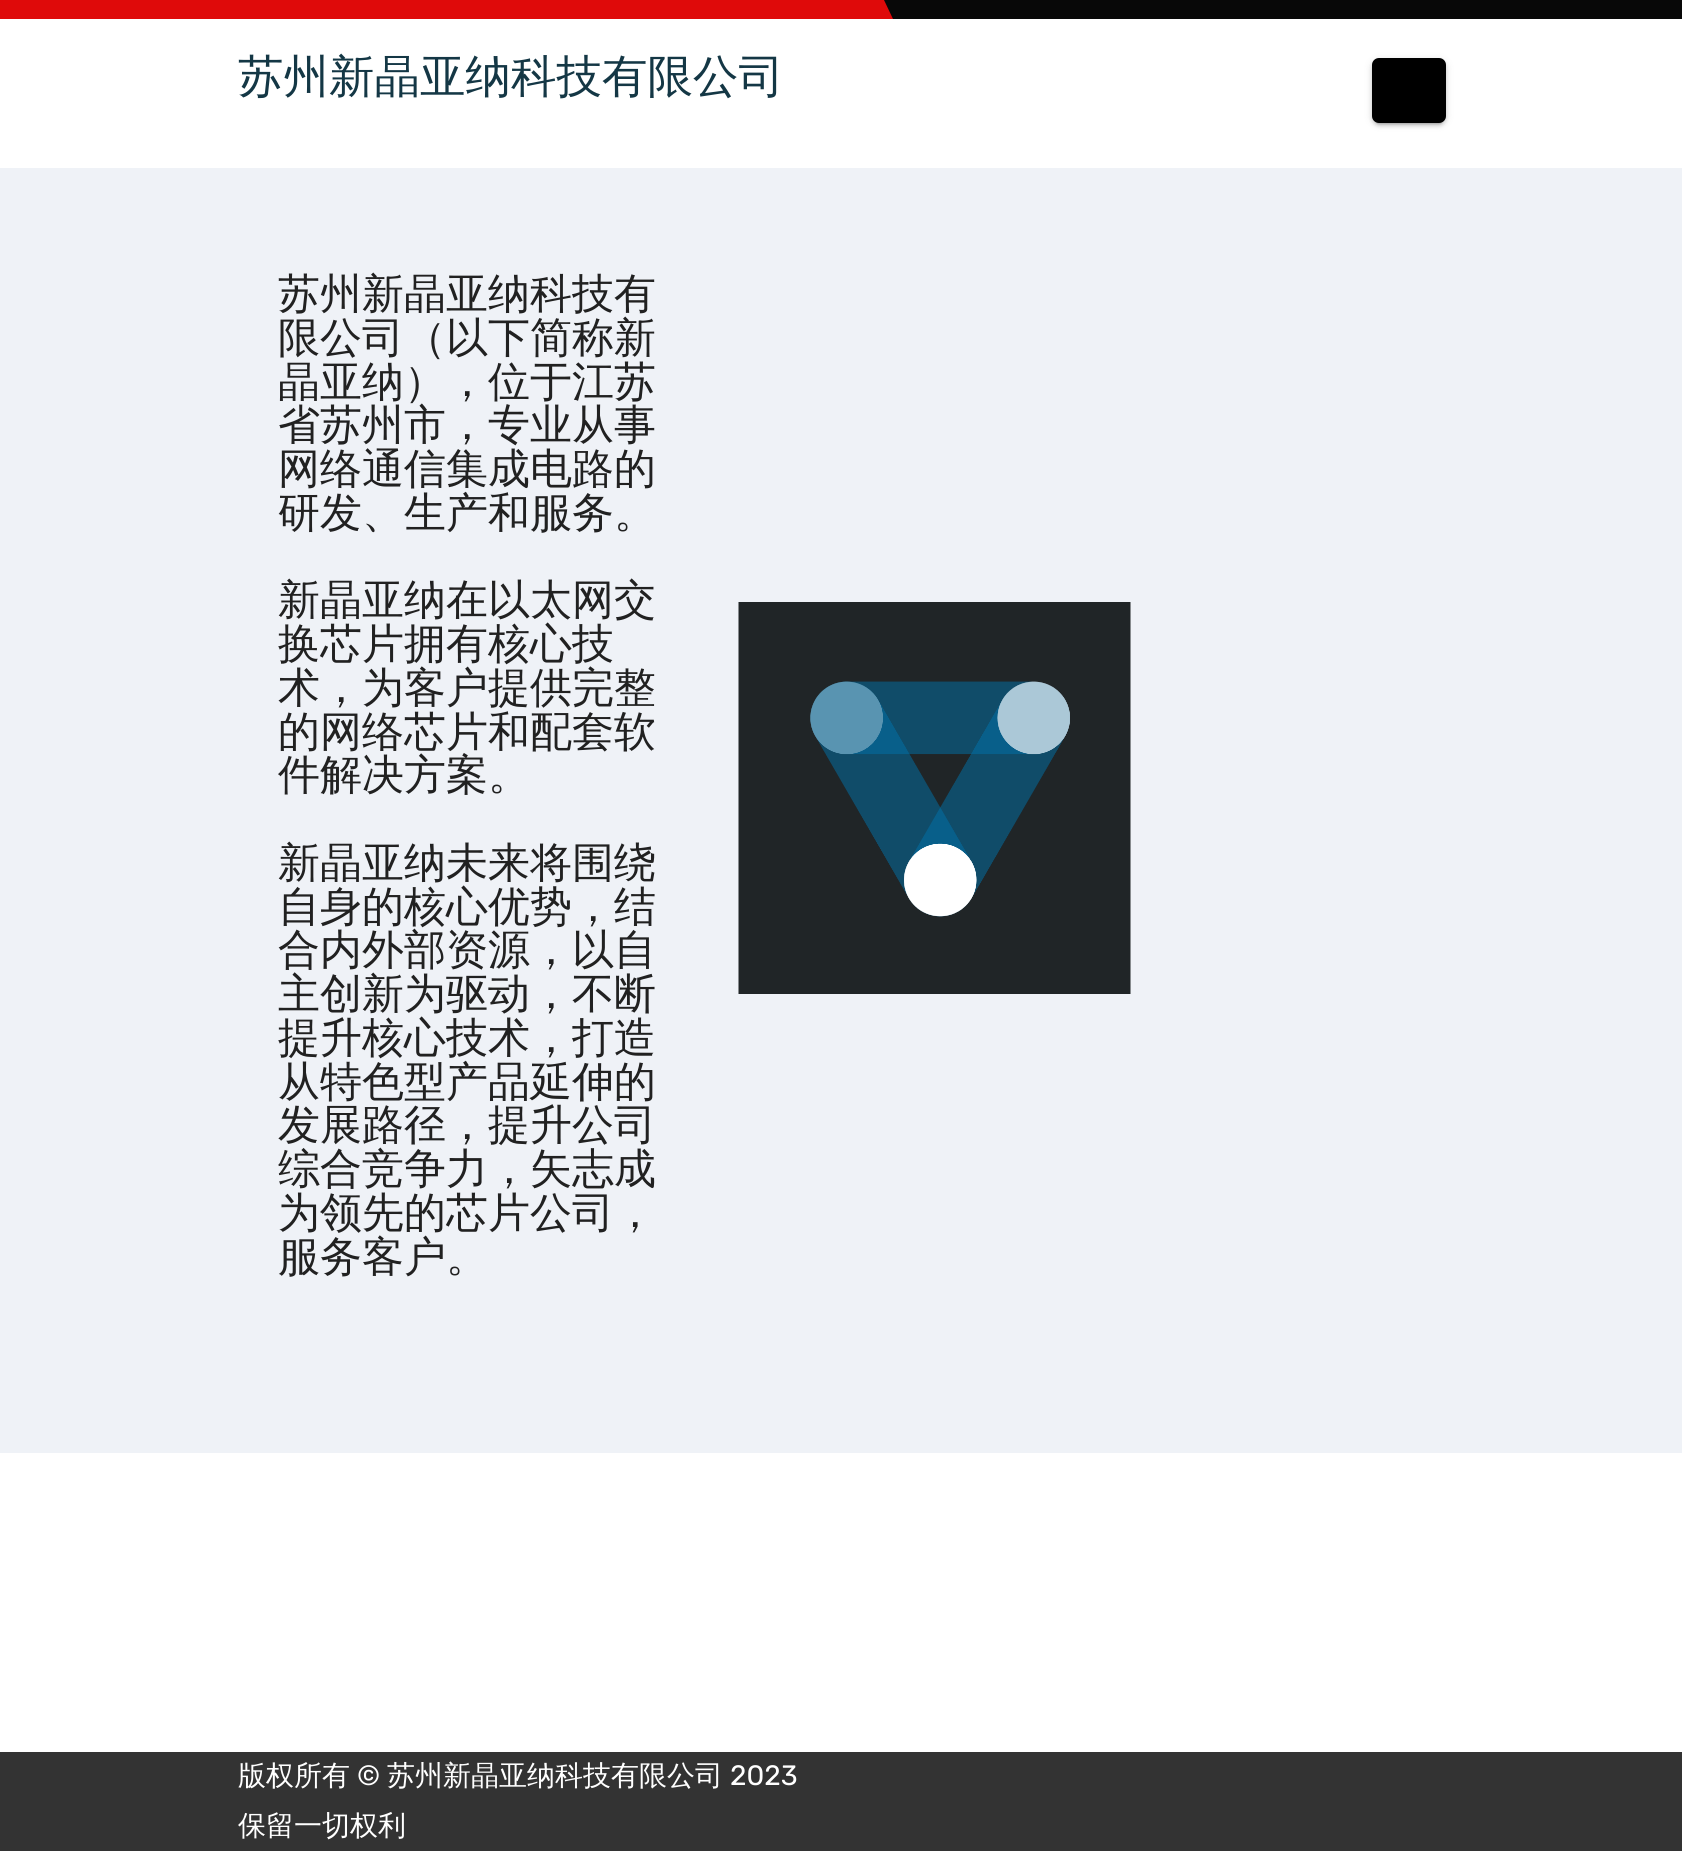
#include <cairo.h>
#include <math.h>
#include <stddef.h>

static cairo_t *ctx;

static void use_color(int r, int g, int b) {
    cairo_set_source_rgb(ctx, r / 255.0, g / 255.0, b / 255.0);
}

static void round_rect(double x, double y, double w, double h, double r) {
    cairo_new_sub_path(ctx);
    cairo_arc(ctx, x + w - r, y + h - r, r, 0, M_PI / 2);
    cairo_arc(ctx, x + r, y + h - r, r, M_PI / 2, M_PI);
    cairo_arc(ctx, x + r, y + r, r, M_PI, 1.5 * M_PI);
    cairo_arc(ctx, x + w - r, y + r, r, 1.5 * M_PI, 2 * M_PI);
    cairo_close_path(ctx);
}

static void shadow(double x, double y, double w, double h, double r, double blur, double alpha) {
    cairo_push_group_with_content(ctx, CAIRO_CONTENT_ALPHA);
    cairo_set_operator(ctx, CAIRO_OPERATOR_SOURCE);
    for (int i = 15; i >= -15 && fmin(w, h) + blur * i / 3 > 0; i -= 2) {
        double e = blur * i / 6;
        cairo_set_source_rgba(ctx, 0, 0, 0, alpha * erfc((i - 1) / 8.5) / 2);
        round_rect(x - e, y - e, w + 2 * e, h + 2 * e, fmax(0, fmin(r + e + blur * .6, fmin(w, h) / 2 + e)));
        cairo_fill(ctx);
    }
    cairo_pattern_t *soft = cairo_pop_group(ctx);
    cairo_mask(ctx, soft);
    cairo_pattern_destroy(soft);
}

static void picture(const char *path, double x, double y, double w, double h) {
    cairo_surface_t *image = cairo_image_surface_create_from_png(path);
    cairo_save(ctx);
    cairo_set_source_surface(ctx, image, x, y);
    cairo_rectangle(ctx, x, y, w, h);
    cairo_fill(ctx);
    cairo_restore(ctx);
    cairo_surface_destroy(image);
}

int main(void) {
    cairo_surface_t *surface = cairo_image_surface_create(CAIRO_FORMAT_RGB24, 1682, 1851);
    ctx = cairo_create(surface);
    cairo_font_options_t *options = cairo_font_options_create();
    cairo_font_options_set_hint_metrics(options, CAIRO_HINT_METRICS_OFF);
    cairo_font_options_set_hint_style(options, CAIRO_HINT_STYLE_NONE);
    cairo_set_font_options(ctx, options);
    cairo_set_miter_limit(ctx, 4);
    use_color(255, 255, 255);
    cairo_paint(ctx);
    use_color(239, 242, 247);
    cairo_rectangle(ctx, 0, 168, 1682, 1285);
    cairo_fill(ctx);
    use_color(8, 8, 8);
    cairo_rectangle(ctx, 884, 0, 798, 19);
    cairo_fill(ctx);
    use_color(223, 10, 10);
    cairo_new_path(ctx);
    cairo_move_to(ctx, -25, 0);
    cairo_line_to(ctx, 884, 0);
    cairo_line_to(ctx, 893, 19);
    cairo_line_to(ctx, -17, 19);
    cairo_close_path(ctx);
    cairo_fill(ctx);
    cairo_select_font_face(ctx, "WenQuanYi Zen Hei Medium", CAIRO_FONT_SLANT_NORMAL, CAIRO_FONT_WEIGHT_NORMAL);
    cairo_set_font_size(ctx, 45.5);
    use_color(20, 55, 69);
    cairo_move_to(ctx, 238, 92);
    cairo_show_text(ctx, "苏州新晶亚纳科技有限公司");
    use_color(0, 0, 0);
    shadow(1372, 60, 74, 64, 7, 4.5, 0.12);
    shadow(1376, 67, 66, 57, 2.5, 1, 0.2);
    shadow(1372, 61, 74, 65, 7, 2, 0.14);
    use_color(0, 0, 0);
    round_rect(1372, 58, 74, 65, 7);
    cairo_fill(ctx);
    cairo_set_font_size(ctx, 42);
    use_color(33, 33, 33);
    cairo_move_to(ctx, 278, 308);
    cairo_show_text(ctx, "苏州新晶亚纳科技有");
    cairo_move_to(ctx, 278, 352);
    cairo_show_text(ctx, "限公司（以下简称新");
    cairo_move_to(ctx, 278, 396);
    cairo_show_text(ctx, "晶亚纳），位于江苏");
    cairo_move_to(ctx, 278, 439);
    cairo_show_text(ctx, "省苏州市，专业从事");
    cairo_move_to(ctx, 278, 483);
    cairo_show_text(ctx, "网络通信集成电路的");
    cairo_move_to(ctx, 278, 527);
    cairo_show_text(ctx, "研发、生产和服务。");
    cairo_move_to(ctx, 278, 614);
    cairo_show_text(ctx, "新晶亚纳在以太网交");
    cairo_move_to(ctx, 278, 658);
    cairo_show_text(ctx, "换芯片拥有核心技");
    cairo_move_to(ctx, 278, 702);
    cairo_show_text(ctx, "术，为客户提供完整");
    cairo_move_to(ctx, 278, 746);
    cairo_show_text(ctx, "的网络芯片和配套软");
    cairo_move_to(ctx, 278, 789);
    cairo_show_text(ctx, "件解决方案。");
    cairo_move_to(ctx, 278, 877);
    cairo_show_text(ctx, "新晶亚纳未来将围绕");
    cairo_move_to(ctx, 278, 921);
    cairo_show_text(ctx, "自身的核心优势，结");
    cairo_move_to(ctx, 278, 964);
    cairo_show_text(ctx, "合内外部资源，以自");
    cairo_move_to(ctx, 278, 1008);
    cairo_show_text(ctx, "主创新为驱动，不断");
    cairo_move_to(ctx, 278, 1052);
    cairo_show_text(ctx, "提升核心技术，打造");
    cairo_move_to(ctx, 278, 1096);
    cairo_show_text(ctx, "从特色型产品延伸的");
    cairo_move_to(ctx, 278, 1139);
    cairo_show_text(ctx, "发展路径，提升公司");
    cairo_move_to(ctx, 278, 1183);
    cairo_show_text(ctx, "综合竞争力，矢志成");
    cairo_move_to(ctx, 278, 1227);
    cairo_show_text(ctx, "为领先的芯片公司，");
    cairo_move_to(ctx, 278, 1271);
    cairo_show_text(ctx, "服务客户。");
    picture("img1.png", 738, 602, 393, 392);
    use_color(51, 51, 51);
    cairo_rectangle(ctx, 0, 1752, 1682, 99);
    cairo_fill(ctx);
    cairo_set_font_size(ctx, 28);
    use_color(255, 255, 255);
    cairo_move_to(ctx, 238, 1785);
    cairo_show_text(ctx, "版权所有");
    cairo_select_font_face(ctx, "Rubik", CAIRO_FONT_SLANT_NORMAL, CAIRO_FONT_WEIGHT_NORMAL);
    cairo_move_to(ctx, 357, 1785);
    cairo_show_text(ctx, "©");
    cairo_select_font_face(ctx, "WenQuanYi Zen Hei Medium", CAIRO_FONT_SLANT_NORMAL, CAIRO_FONT_WEIGHT_NORMAL);
    cairo_move_to(ctx, 387, 1785);
    cairo_show_text(ctx, "苏州新晶亚纳科技有限公司");
    cairo_select_font_face(ctx, "Rubik", CAIRO_FONT_SLANT_NORMAL, CAIRO_FONT_WEIGHT_NORMAL);
    cairo_move_to(ctx, 730, 1785);
    cairo_show_text(ctx, "2023");
    cairo_select_font_face(ctx, "WenQuanYi Zen Hei Medium", CAIRO_FONT_SLANT_NORMAL, CAIRO_FONT_WEIGHT_NORMAL);
    cairo_move_to(ctx, 238, 1835);
    cairo_show_text(ctx, "保留一切权利");
    cairo_surface_write_to_png(surface, "result.png");
    cairo_font_options_destroy(options);
    cairo_destroy(ctx);
    cairo_surface_destroy(surface);
    return 0;
}
